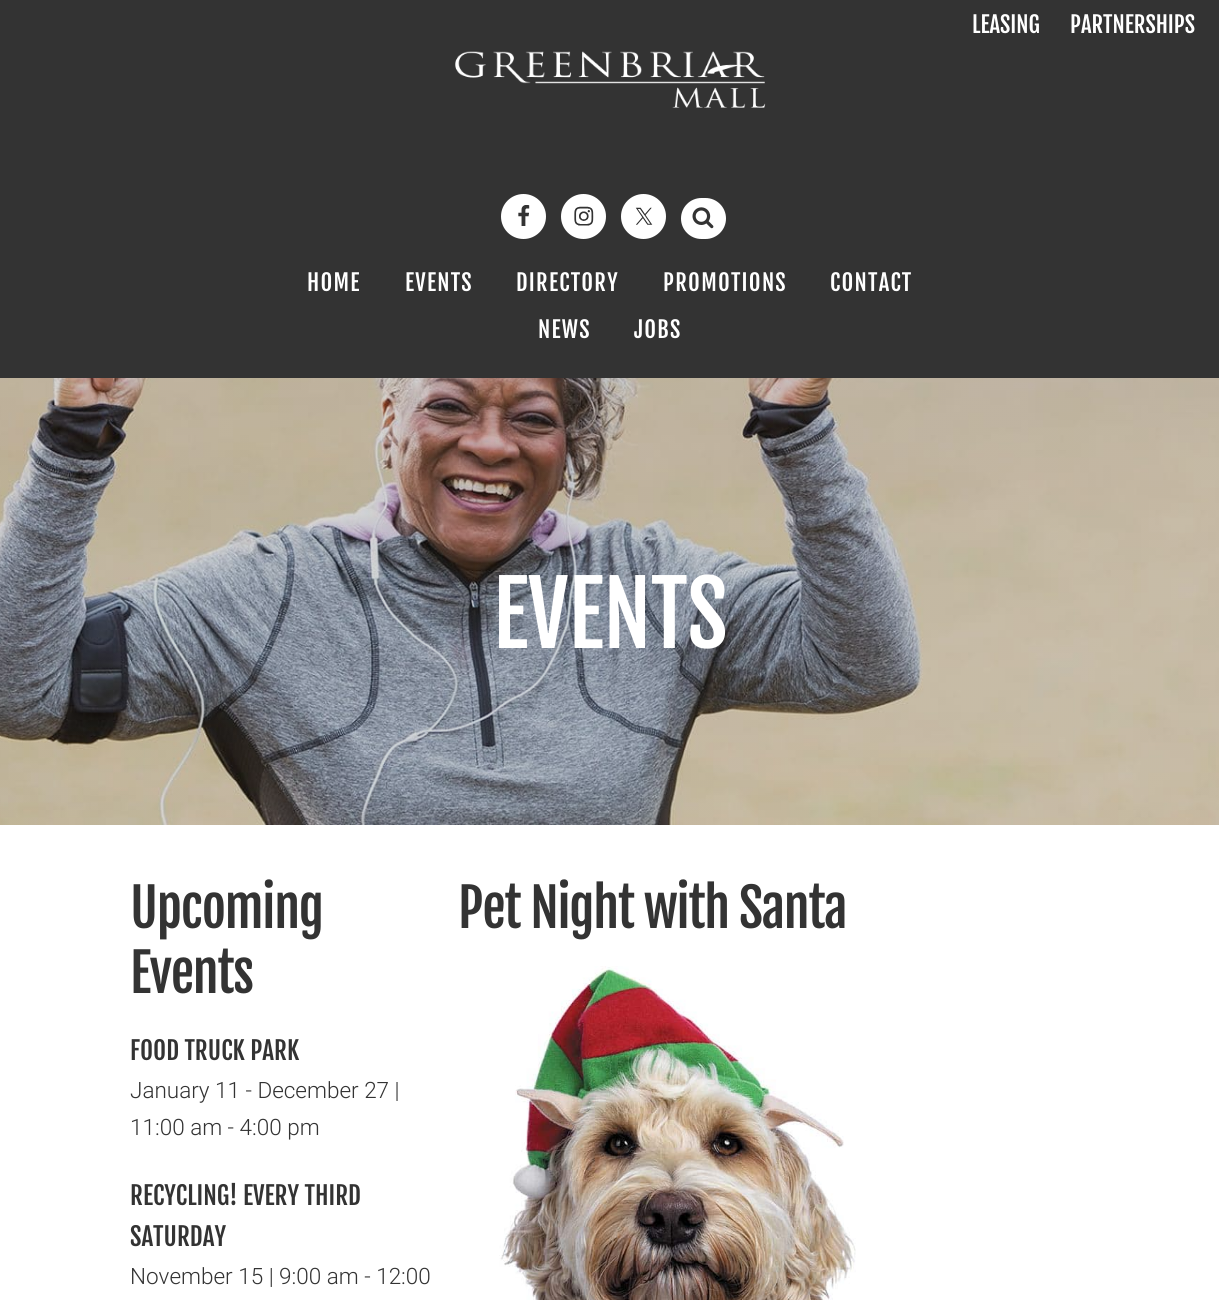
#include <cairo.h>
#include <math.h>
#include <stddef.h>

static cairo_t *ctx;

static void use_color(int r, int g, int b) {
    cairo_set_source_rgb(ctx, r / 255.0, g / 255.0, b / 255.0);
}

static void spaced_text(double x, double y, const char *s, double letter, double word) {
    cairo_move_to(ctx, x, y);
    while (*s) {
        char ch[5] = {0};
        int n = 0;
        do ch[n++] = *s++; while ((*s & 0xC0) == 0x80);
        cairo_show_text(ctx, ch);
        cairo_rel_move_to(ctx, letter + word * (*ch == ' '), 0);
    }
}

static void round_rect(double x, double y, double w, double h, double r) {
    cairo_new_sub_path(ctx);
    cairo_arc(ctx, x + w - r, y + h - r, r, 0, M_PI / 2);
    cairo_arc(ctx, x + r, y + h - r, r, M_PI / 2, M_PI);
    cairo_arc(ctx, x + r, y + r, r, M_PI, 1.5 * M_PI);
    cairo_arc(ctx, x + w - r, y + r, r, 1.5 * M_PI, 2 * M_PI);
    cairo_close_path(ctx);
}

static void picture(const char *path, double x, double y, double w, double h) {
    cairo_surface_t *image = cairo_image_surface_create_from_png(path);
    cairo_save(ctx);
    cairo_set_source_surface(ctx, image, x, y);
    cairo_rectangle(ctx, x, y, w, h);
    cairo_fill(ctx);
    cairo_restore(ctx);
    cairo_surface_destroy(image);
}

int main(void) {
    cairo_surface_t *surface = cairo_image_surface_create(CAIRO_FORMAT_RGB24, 1219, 1300);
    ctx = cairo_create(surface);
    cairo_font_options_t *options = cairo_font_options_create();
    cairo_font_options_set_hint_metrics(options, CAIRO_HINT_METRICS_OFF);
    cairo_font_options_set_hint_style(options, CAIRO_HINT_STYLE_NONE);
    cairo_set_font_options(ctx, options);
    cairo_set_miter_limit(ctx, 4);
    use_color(255, 255, 255);
    cairo_paint(ctx);
    use_color(51, 51, 51);
    cairo_rectangle(ctx, 0, 0, 1219, 378);
    cairo_fill(ctx);
    cairo_select_font_face(ctx, "Fjalla One", CAIRO_FONT_SLANT_NORMAL, CAIRO_FONT_WEIGHT_NORMAL);
    cairo_set_font_size(ctx, 22.5);
    use_color(255, 255, 255);
    cairo_move_to(ctx, 972, 33);
    cairo_show_text(ctx, "LEASING");
    cairo_move_to(ctx, 1070, 33);
    cairo_show_text(ctx, "PARTNERSHIPS");
    picture("img1.png", 455, 51, 311, 57);
    cairo_arc(ctx, 523.5, 216.5, 22.5, 0, 2 * M_PI);
    cairo_fill(ctx);
    picture("img2.png", 518, 205, 12, 21);
    cairo_arc(ctx, 583.5, 216.5, 22.5, 0, 2 * M_PI);
    cairo_fill(ctx);
    picture("img3.png", 574, 206, 20, 20);
    cairo_arc(ctx, 643.5, 216.5, 22.5, 0, 2 * M_PI);
    cairo_fill(ctx);
    picture("img4.png", 635, 207, 18, 18);
    round_rect(681, 198, 45, 41, 20.5);
    cairo_fill(ctx);
    picture("img5.png", 692, 207, 22, 22);
    spaced_text(307, 291, "HOME", 1.25, 0);
    spaced_text(405, 291, "EVENTS", 1.25, 0);
    spaced_text(516, 291, "DIRECTORY", 1.25, 0);
    spaced_text(663, 291, "PROMOTIONS", 1.25, 0);
    spaced_text(830, 291, "CONTACT", 1.25, 0);
    spaced_text(538, 338, "NEWS", 1.25, 0);
    spaced_text(634, 338, "JOBS", 1.25, 0);
    picture("img6.png", 0, 378, 1219, 447);
    cairo_set_font_size(ctx, 87.5);
    cairo_move_to(ctx, 493, 648);
    cairo_show_text(ctx, "EVENTS");
    cairo_set_font_size(ctx, 52.5);
    use_color(51, 51, 51);
    spaced_text(130, 928, "Upcoming", -1.25, 0);
    spaced_text(130, 993, "Events", -1.25, 0);
    cairo_set_font_size(ctx, 25);
    cairo_move_to(ctx, 130, 1060);
    cairo_show_text(ctx, "FOOD TRUCK PARK");
    cairo_select_font_face(ctx, "Roboto Light", CAIRO_FONT_SLANT_NORMAL, CAIRO_FONT_WEIGHT_NORMAL);
    cairo_set_font_size(ctx, 22.5);
    cairo_move_to(ctx, 130, 1098);
    cairo_show_text(ctx, "January 11 - December 27 |");
    cairo_move_to(ctx, 130, 1135);
    cairo_show_text(ctx, "11:00 am - 4:00 pm");
    cairo_select_font_face(ctx, "Fjalla One", CAIRO_FONT_SLANT_NORMAL, CAIRO_FONT_WEIGHT_NORMAL);
    cairo_set_font_size(ctx, 25);
    cairo_move_to(ctx, 130, 1205);
    cairo_show_text(ctx, "RECYCLING! EVERY THIRD");
    cairo_move_to(ctx, 130, 1246);
    cairo_show_text(ctx, "SATURDAY");
    cairo_select_font_face(ctx, "Roboto Light", CAIRO_FONT_SLANT_NORMAL, CAIRO_FONT_WEIGHT_NORMAL);
    cairo_set_font_size(ctx, 22.5);
    cairo_move_to(ctx, 130, 1284);
    cairo_show_text(ctx, "November 15 | 9:00 am - 12:00");
    cairo_select_font_face(ctx, "Fjalla One", CAIRO_FONT_SLANT_NORMAL, CAIRO_FONT_WEIGHT_NORMAL);
    cairo_set_font_size(ctx, 52.5);
    spaced_text(458, 928, "Pet Night with Santa", -1.25, 0);
    picture("img7.png", 499, 966, 357, 334);
    cairo_surface_write_to_png(surface, "result.png");
    cairo_font_options_destroy(options);
    cairo_destroy(ctx);
    cairo_surface_destroy(surface);
    return 0;
}
